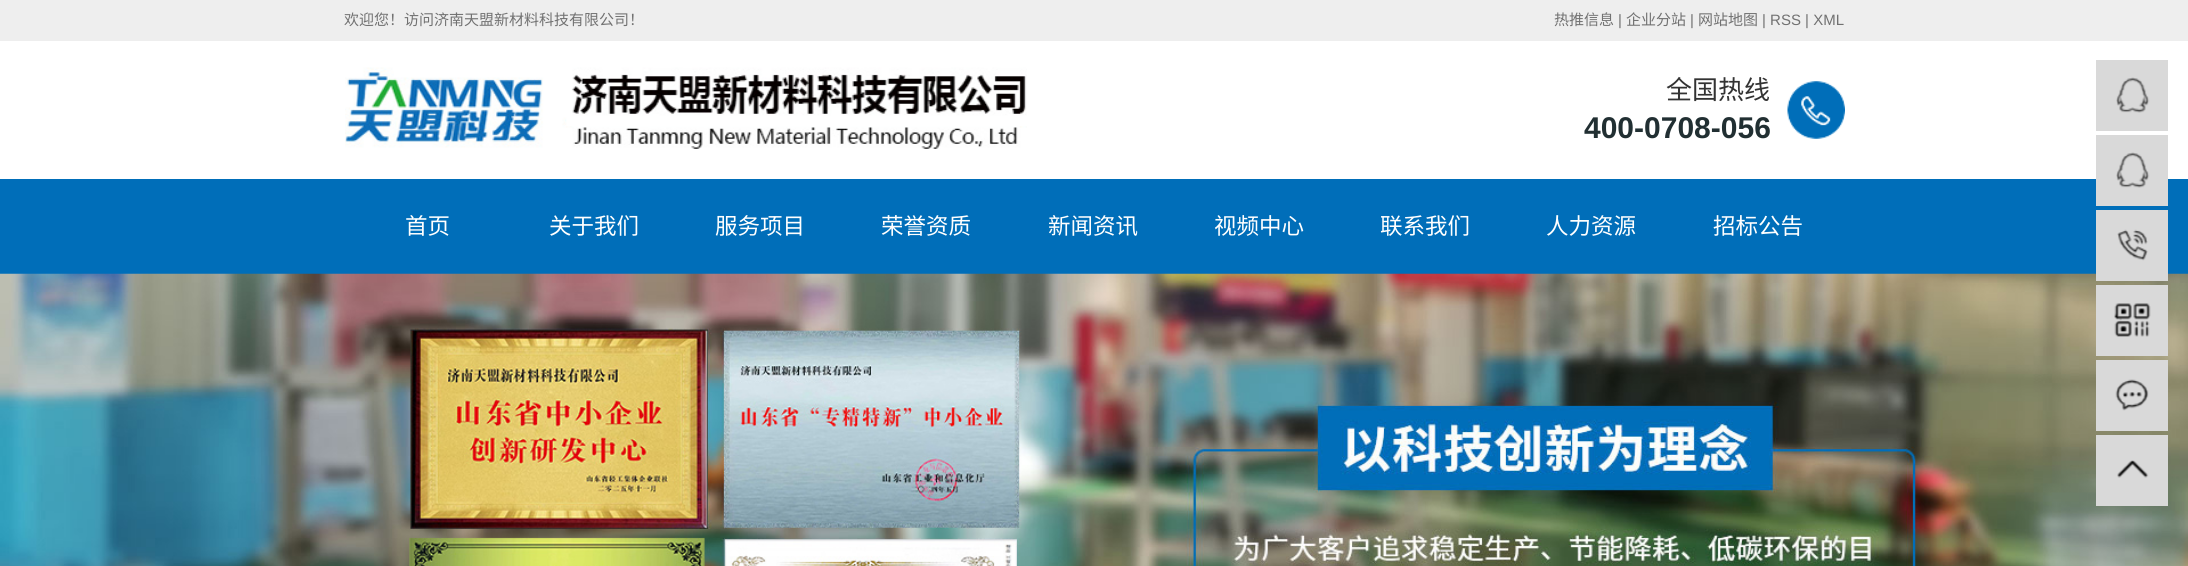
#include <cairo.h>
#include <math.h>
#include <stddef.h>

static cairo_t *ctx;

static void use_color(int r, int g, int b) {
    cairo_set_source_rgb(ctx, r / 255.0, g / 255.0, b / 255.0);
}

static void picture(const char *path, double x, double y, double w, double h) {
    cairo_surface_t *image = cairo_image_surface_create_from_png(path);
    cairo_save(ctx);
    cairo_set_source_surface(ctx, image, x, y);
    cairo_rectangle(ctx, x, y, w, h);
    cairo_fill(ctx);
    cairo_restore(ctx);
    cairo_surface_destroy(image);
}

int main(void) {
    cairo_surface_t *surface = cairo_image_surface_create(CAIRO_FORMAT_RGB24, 2188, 566);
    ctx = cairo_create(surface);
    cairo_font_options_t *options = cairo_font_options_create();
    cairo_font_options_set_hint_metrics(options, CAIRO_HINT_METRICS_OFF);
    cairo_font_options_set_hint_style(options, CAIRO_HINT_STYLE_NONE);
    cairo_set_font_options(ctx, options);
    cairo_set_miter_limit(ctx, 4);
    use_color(255, 255, 255);
    cairo_paint(ctx);
    use_color(238, 238, 238);
    cairo_rectangle(ctx, 0, 0, 2188, 41);
    cairo_fill(ctx);
    cairo_select_font_face(ctx, "Noto Sans CJK SC", CAIRO_FONT_SLANT_NORMAL, CAIRO_FONT_WEIGHT_NORMAL);
    cairo_set_font_size(ctx, 15);
    use_color(113, 113, 113);
    cairo_move_to(ctx, 344, 25);
    cairo_show_text(ctx, "欢迎您！访问济南天盟新材料科技有限公司！");
    cairo_move_to(ctx, 1554, 25);
    cairo_show_text(ctx, "热推信息");
    cairo_select_font_face(ctx, "Liberation Sans", CAIRO_FONT_SLANT_NORMAL, CAIRO_FONT_WEIGHT_NORMAL);
    cairo_move_to(ctx, 1618, 25);
    cairo_show_text(ctx, "|");
    cairo_select_font_face(ctx, "Noto Sans CJK SC", CAIRO_FONT_SLANT_NORMAL, CAIRO_FONT_WEIGHT_NORMAL);
    cairo_move_to(ctx, 1626, 25);
    cairo_show_text(ctx, "企业分站");
    cairo_select_font_face(ctx, "Liberation Sans", CAIRO_FONT_SLANT_NORMAL, CAIRO_FONT_WEIGHT_NORMAL);
    cairo_move_to(ctx, 1690, 25);
    cairo_show_text(ctx, "|");
    cairo_select_font_face(ctx, "Noto Sans CJK SC", CAIRO_FONT_SLANT_NORMAL, CAIRO_FONT_WEIGHT_NORMAL);
    cairo_move_to(ctx, 1698, 25);
    cairo_show_text(ctx, "网站地图");
    cairo_select_font_face(ctx, "Liberation Sans", CAIRO_FONT_SLANT_NORMAL, CAIRO_FONT_WEIGHT_NORMAL);
    cairo_move_to(ctx, 1762, 25);
    cairo_show_text(ctx, "| RSS | XML");
    picture("img1.png", 345, 67, 682, 82);
    picture("img2.png", 1787, 81, 58, 58);
    cairo_select_font_face(ctx, "Noto Sans CJK SC", CAIRO_FONT_SLANT_NORMAL, CAIRO_FONT_WEIGHT_NORMAL);
    cairo_set_font_size(ctx, 26);
    use_color(51, 51, 51);
    cairo_move_to(ctx, 1666, 99);
    cairo_show_text(ctx, "全国热线");
    cairo_select_font_face(ctx, "Liberation Sans", CAIRO_FONT_SLANT_NORMAL, CAIRO_FONT_WEIGHT_BOLD);
    cairo_set_font_size(ctx, 30);
    use_color(33, 47, 50);
    cairo_move_to(ctx, 1584, 138);
    cairo_show_text(ctx, "400-0708-056");
    use_color(217, 217, 217);
    cairo_rectangle(ctx, 2096, 60, 72, 71);
    cairo_fill(ctx);
    picture("img3.png", 2116, 77, 34, 36);
    use_color(0, 110, 185);
    cairo_rectangle(ctx, 0, 179, 2188, 95);
    cairo_fill(ctx);
    use_color(217, 217, 217);
    cairo_rectangle(ctx, 2096, 135, 72, 71);
    cairo_fill(ctx);
    picture("img3.png", 2116, 152, 34, 36);
    picture("img8.png", 0, 273, 2188, 293);
    cairo_rectangle(ctx, 2096, 210, 72, 71);
    cairo_fill(ctx);
    picture("img4.png", 2117, 229, 31, 32);
    cairo_rectangle(ctx, 2096, 285, 72, 71);
    cairo_fill(ctx);
    picture("img5.png", 2114, 303, 37, 34);
    cairo_rectangle(ctx, 2096, 360, 72, 71);
    cairo_fill(ctx);
    picture("img6.png", 2115, 379, 34, 32);
    cairo_rectangle(ctx, 2096, 435, 72, 71);
    cairo_fill(ctx);
    picture("img7.png", 2117, 460, 32, 18);
    cairo_select_font_face(ctx, "Noto Sans CJK SC", CAIRO_FONT_SLANT_NORMAL, CAIRO_FONT_WEIGHT_NORMAL);
    cairo_set_font_size(ctx, 22.5);
    use_color(255, 255, 255);
    cairo_move_to(ctx, 405, 234);
    cairo_show_text(ctx, "首页");
    cairo_move_to(ctx, 549, 234);
    cairo_show_text(ctx, "关于我们");
    cairo_move_to(ctx, 715, 234);
    cairo_show_text(ctx, "服务项目");
    cairo_move_to(ctx, 881, 234);
    cairo_show_text(ctx, "荣誉资质");
    cairo_move_to(ctx, 1048, 234);
    cairo_show_text(ctx, "新闻资讯");
    cairo_move_to(ctx, 1214, 234);
    cairo_show_text(ctx, "视频中心");
    cairo_move_to(ctx, 1380, 234);
    cairo_show_text(ctx, "联系我们");
    cairo_move_to(ctx, 1546, 234);
    cairo_show_text(ctx, "人力资源");
    cairo_move_to(ctx, 1713, 234);
    cairo_show_text(ctx, "招标公告");
    cairo_surface_write_to_png(surface, "result.png");
    cairo_font_options_destroy(options);
    cairo_destroy(ctx);
    cairo_surface_destroy(surface);
    return 0;
}
